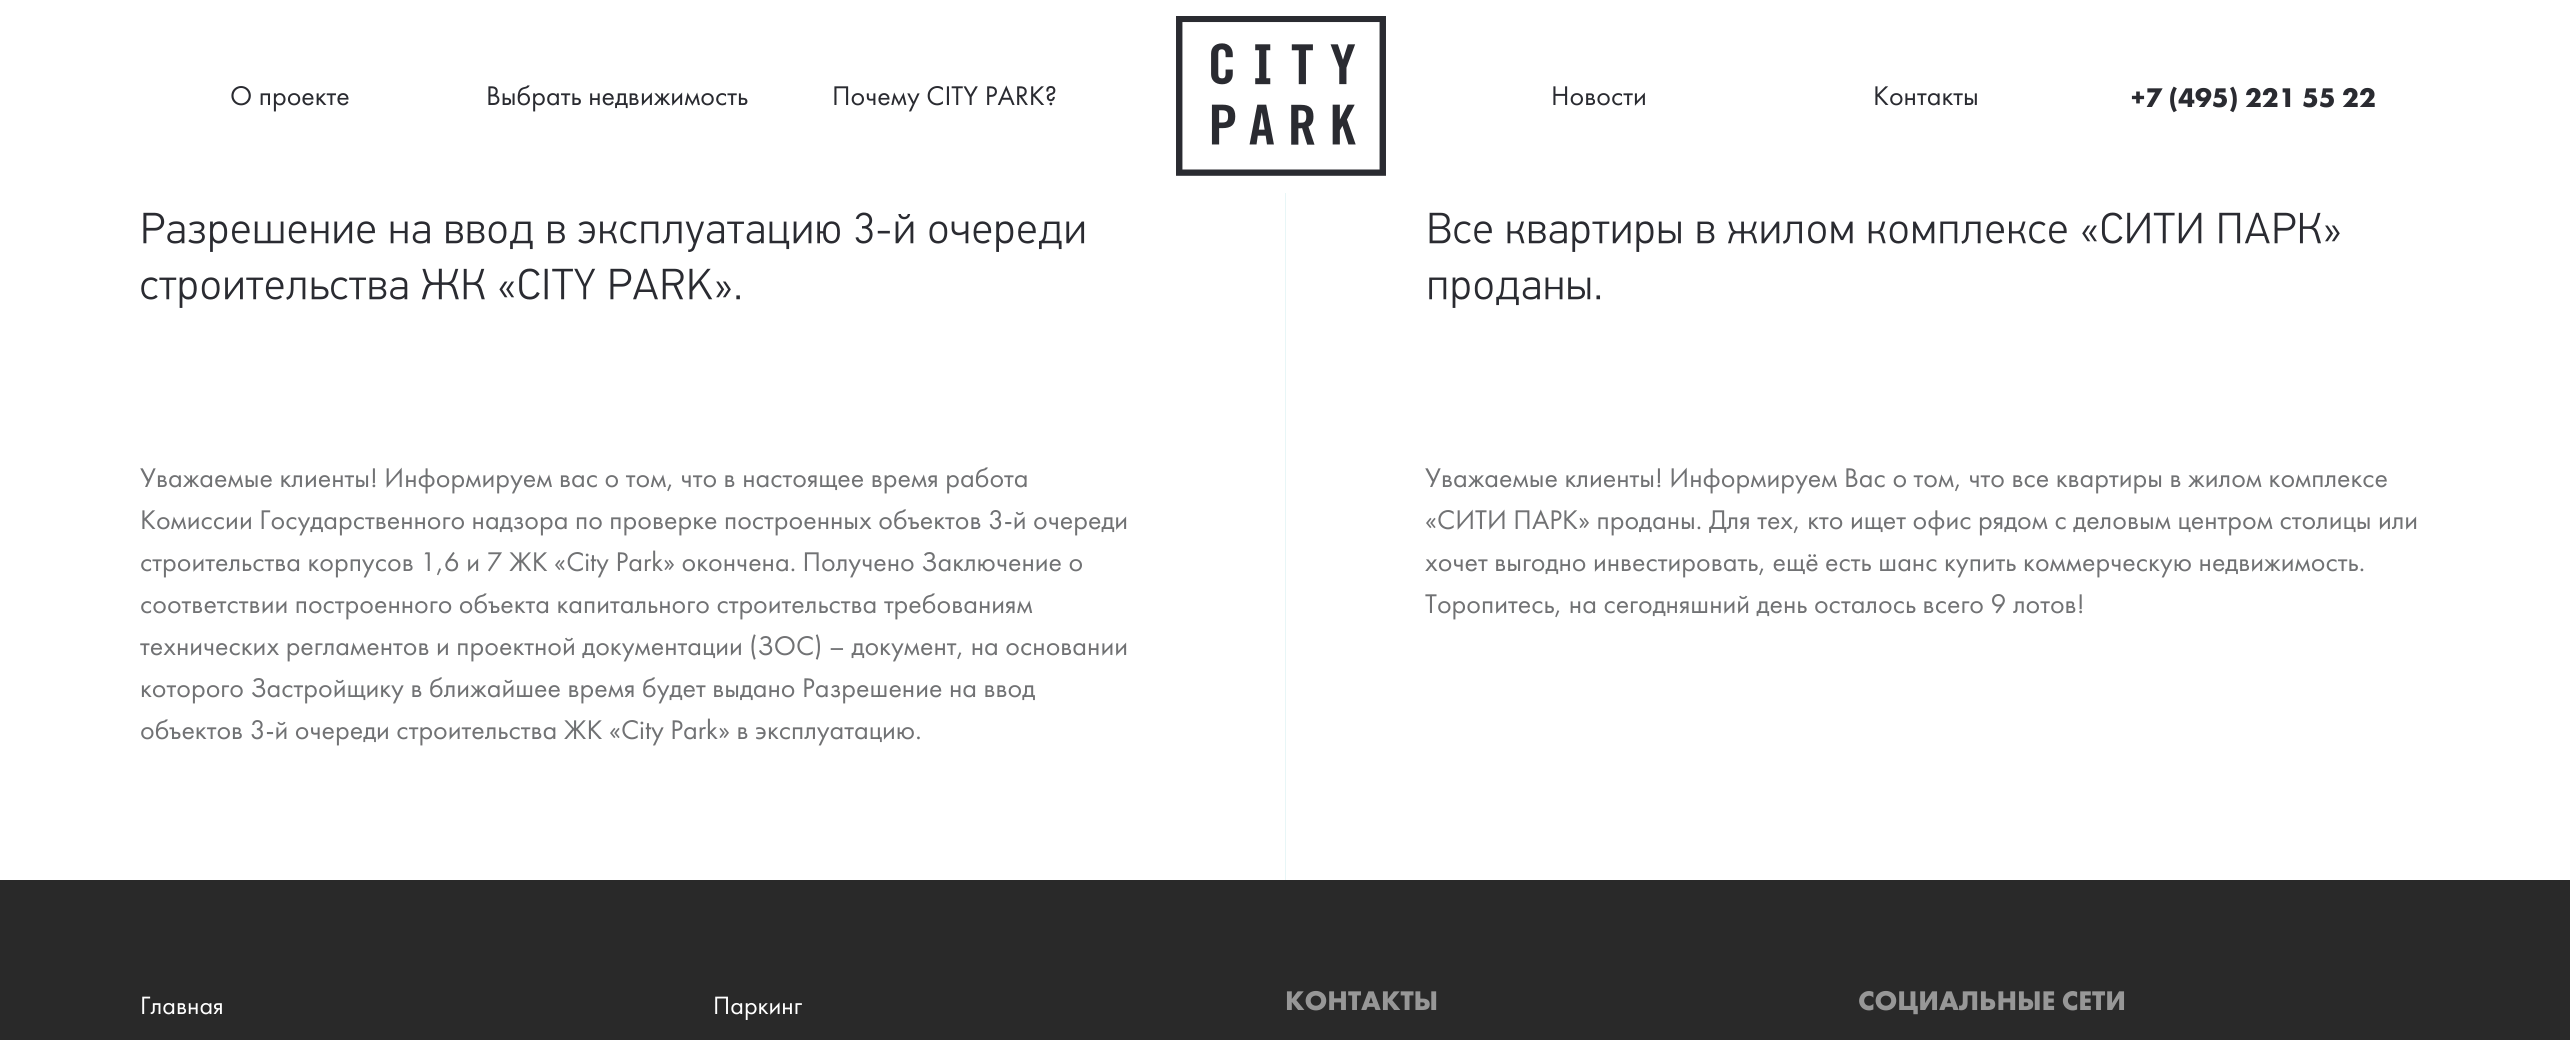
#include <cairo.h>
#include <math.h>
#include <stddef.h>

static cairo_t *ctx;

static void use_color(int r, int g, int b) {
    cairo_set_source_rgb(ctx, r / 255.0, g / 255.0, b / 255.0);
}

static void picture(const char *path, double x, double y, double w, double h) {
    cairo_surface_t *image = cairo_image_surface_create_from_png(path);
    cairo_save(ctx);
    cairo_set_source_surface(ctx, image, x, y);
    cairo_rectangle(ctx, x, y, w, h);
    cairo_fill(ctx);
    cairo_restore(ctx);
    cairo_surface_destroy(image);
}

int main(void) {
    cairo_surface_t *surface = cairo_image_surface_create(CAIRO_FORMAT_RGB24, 2570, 1040);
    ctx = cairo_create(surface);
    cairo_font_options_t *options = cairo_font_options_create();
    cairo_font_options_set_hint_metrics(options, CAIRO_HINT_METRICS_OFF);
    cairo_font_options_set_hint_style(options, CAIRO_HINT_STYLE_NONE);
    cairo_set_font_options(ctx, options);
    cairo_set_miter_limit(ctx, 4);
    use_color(232, 246, 247);
    cairo_paint(ctx);
    use_color(255, 255, 255);
    cairo_rectangle(ctx, 0, 0, 2570, 193);
    cairo_fill(ctx);
    cairo_select_font_face(ctx, "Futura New", CAIRO_FONT_SLANT_NORMAL, CAIRO_FONT_WEIGHT_NORMAL);
    cairo_set_font_size(ctx, 28);
    use_color(42, 43, 49);
    cairo_move_to(ctx, 230, 105);
    cairo_show_text(ctx, "О проекте");
    cairo_move_to(ctx, 486, 105);
    cairo_show_text(ctx, "Выбрать недвижимость");
    cairo_move_to(ctx, 832, 105);
    cairo_show_text(ctx, "Почему CITY PARK?");
    picture("img1.png", 1176, 16, 210, 160);
    cairo_move_to(ctx, 1551, 105);
    cairo_show_text(ctx, "Новости");
    cairo_move_to(ctx, 1873, 105);
    cairo_show_text(ctx, "Контакты");
    cairo_select_font_face(ctx, "Futura New", CAIRO_FONT_SLANT_NORMAL, CAIRO_FONT_WEIGHT_BOLD);
    cairo_move_to(ctx, 2131, 107);
    cairo_show_text(ctx, "+7 (495) 221 55 22");
    use_color(255, 255, 255);
    cairo_rectangle(ctx, 0, 193, 1285, 687);
    cairo_fill(ctx);
    picture("img2.png", 143, 212, 942, 40);
    picture("img3.png", 141, 268, 599, 40);
    cairo_select_font_face(ctx, "Futura New", CAIRO_FONT_SLANT_NORMAL, CAIRO_FONT_WEIGHT_NORMAL);
    use_color(113, 114, 116);
    cairo_move_to(ctx, 140, 487);
    cairo_show_text(ctx, "Уважаемые клиенты! Информируем вас о том, что в настоящее время работа");
    cairo_move_to(ctx, 140, 529);
    cairo_show_text(ctx, "Комиссии Государственного надзора по проверке построенных объектов 3-й очереди");
    cairo_move_to(ctx, 140, 571);
    cairo_show_text(ctx, "строительства корпусов 1,6 и 7 ЖК «City Park» окончена. Получено Заключение о");
    cairo_move_to(ctx, 140, 613);
    cairo_show_text(ctx, "соответствии построенного объекта капитального строительства требованиям");
    cairo_move_to(ctx, 140, 655);
    cairo_show_text(ctx, "технических регламентов и проектной документации (ЗОС) – документ, на основании");
    cairo_move_to(ctx, 140, 697);
    cairo_show_text(ctx, "которого Застройщику в ближайшее время будет выдано Разрешение на ввод");
    cairo_move_to(ctx, 140, 739);
    cairo_show_text(ctx, "объектов 3-й очереди строительства ЖК «City Park» в эксплуатацию.");
    use_color(255, 255, 255);
    cairo_rectangle(ctx, 1286, 193, 1284, 687);
    cairo_fill(ctx);
    picture("img4.png", 1429, 212, 911, 40);
    picture("img5.png", 1429, 277, 172, 31);
    use_color(113, 114, 116);
    cairo_move_to(ctx, 1425, 487);
    cairo_show_text(ctx, "Уважаемые клиенты! Информируем Вас о том, что все квартиры в жилом комплексе");
    cairo_move_to(ctx, 1425, 529);
    cairo_show_text(ctx, "«СИТИ ПАРК» проданы. Для тех, кто ищет офис рядом с деловым центром столицы или");
    cairo_move_to(ctx, 1425, 571);
    cairo_show_text(ctx, "хочет выгодно инвестировать, ещё есть шанс купить коммерческую недвижимость.");
    cairo_move_to(ctx, 1425, 613);
    cairo_show_text(ctx, "Торопитесь, на сегодняшний день осталось всего 9 лотов!");
    use_color(41, 41, 41);
    cairo_rectangle(ctx, 0, 880, 2570, 160);
    cairo_fill(ctx);
    cairo_set_font_size(ctx, 26);
    use_color(255, 255, 255);
    cairo_move_to(ctx, 140, 1014);
    cairo_show_text(ctx, "Главная");
    cairo_move_to(ctx, 713, 1014);
    cairo_show_text(ctx, "Паркинг");
    cairo_select_font_face(ctx, "Futura New", CAIRO_FONT_SLANT_NORMAL, CAIRO_FONT_WEIGHT_BOLD);
    cairo_set_font_size(ctx, 28);
    use_color(151, 151, 151);
    cairo_move_to(ctx, 1285, 1010);
    cairo_show_text(ctx, "КОНТАКТЫ");
    cairo_move_to(ctx, 1858, 1010);
    cairo_show_text(ctx, "СОЦИАЛЬНЫЕ СЕТИ");
    cairo_surface_write_to_png(surface, "result.png");
    cairo_font_options_destroy(options);
    cairo_destroy(ctx);
    cairo_surface_destroy(surface);
    return 0;
}
